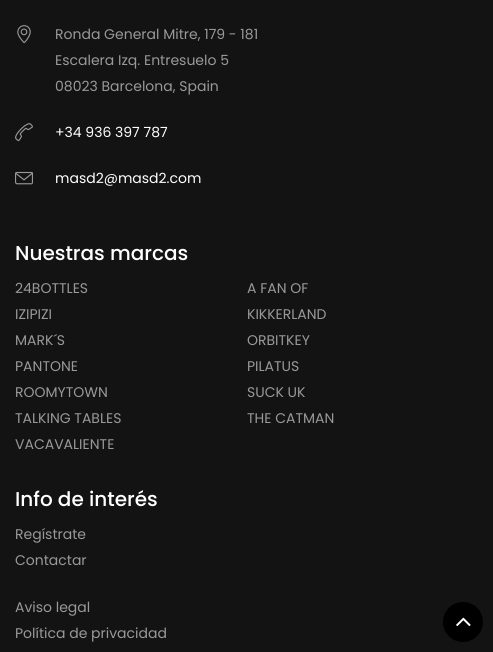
#include <cairo.h>
#include <math.h>
#include <stddef.h>

static cairo_t *ctx;

static void use_color(int r, int g, int b) {
    cairo_set_source_rgb(ctx, r / 255.0, g / 255.0, b / 255.0);
}

static void picture(const char *path, double x, double y, double w, double h) {
    cairo_surface_t *image = cairo_image_surface_create_from_png(path);
    cairo_save(ctx);
    cairo_set_source_surface(ctx, image, x, y);
    cairo_rectangle(ctx, x, y, w, h);
    cairo_fill(ctx);
    cairo_restore(ctx);
    cairo_surface_destroy(image);
}

int main(void) {
    cairo_surface_t *surface = cairo_image_surface_create(CAIRO_FORMAT_RGB24, 493, 652);
    ctx = cairo_create(surface);
    cairo_font_options_t *options = cairo_font_options_create();
    cairo_font_options_set_hint_metrics(options, CAIRO_HINT_METRICS_OFF);
    cairo_font_options_set_hint_style(options, CAIRO_HINT_STYLE_NONE);
    cairo_set_font_options(ctx, options);
    cairo_set_miter_limit(ctx, 4);
    use_color(19, 19, 19);
    cairo_paint(ctx);
    picture("img1.png", 17, 25, 14, 19);
    cairo_select_font_face(ctx, "Poppins", CAIRO_FONT_SLANT_NORMAL, CAIRO_FONT_WEIGHT_NORMAL);
    cairo_set_font_size(ctx, 14);
    use_color(153, 153, 153);
    cairo_move_to(ctx, 55, 39);
    cairo_show_text(ctx, "Ronda General Mitre, 179 - 181");
    cairo_move_to(ctx, 55, 65);
    cairo_show_text(ctx, "Escalera Izq. Entresuelo 5");
    cairo_move_to(ctx, 55, 91);
    cairo_show_text(ctx, "08023 Barcelona, Spain");
    picture("img2.png", 15, 123, 18, 19);
    use_color(255, 255, 255);
    cairo_move_to(ctx, 55, 137);
    cairo_show_text(ctx, "+34 936 397 787");
    picture("img3.png", 15, 171, 18, 14);
    cairo_move_to(ctx, 55, 183);
    cairo_show_text(ctx, "masd2@masd2.com");
    cairo_select_font_face(ctx, "Poppins Medium", CAIRO_FONT_SLANT_NORMAL, CAIRO_FONT_WEIGHT_NORMAL);
    cairo_set_font_size(ctx, 20);
    cairo_move_to(ctx, 15, 260);
    cairo_show_text(ctx, "Nuestras marcas");
    cairo_select_font_face(ctx, "Poppins", CAIRO_FONT_SLANT_NORMAL, CAIRO_FONT_WEIGHT_NORMAL);
    cairo_set_font_size(ctx, 14);
    use_color(153, 153, 153);
    cairo_move_to(ctx, 15, 293);
    cairo_show_text(ctx, "24BOTTLES");
    cairo_move_to(ctx, 247, 293);
    cairo_show_text(ctx, "A FAN OF");
    cairo_move_to(ctx, 15, 319);
    cairo_show_text(ctx, "IZIPIZI");
    cairo_move_to(ctx, 247, 319);
    cairo_show_text(ctx, "KIKKERLAND");
    cairo_move_to(ctx, 15, 345);
    cairo_show_text(ctx, "MARK´S");
    cairo_move_to(ctx, 247, 345);
    cairo_show_text(ctx, "ORBITKEY");
    cairo_move_to(ctx, 15, 371);
    cairo_show_text(ctx, "PANTONE");
    cairo_move_to(ctx, 247, 371);
    cairo_show_text(ctx, "PILATUS");
    cairo_move_to(ctx, 15, 397);
    cairo_show_text(ctx, "ROOMYTOWN");
    cairo_move_to(ctx, 247, 397);
    cairo_show_text(ctx, "SUCK UK");
    cairo_move_to(ctx, 15, 423);
    cairo_show_text(ctx, "TALKING TABLES");
    cairo_move_to(ctx, 247, 423);
    cairo_show_text(ctx, "THE CATMAN");
    cairo_move_to(ctx, 15, 449);
    cairo_show_text(ctx, "VACAVALIENTE");
    cairo_select_font_face(ctx, "Poppins Medium", CAIRO_FONT_SLANT_NORMAL, CAIRO_FONT_WEIGHT_NORMAL);
    cairo_set_font_size(ctx, 20);
    use_color(255, 255, 255);
    cairo_move_to(ctx, 15, 506);
    cairo_show_text(ctx, "Info de interés");
    cairo_select_font_face(ctx, "Poppins", CAIRO_FONT_SLANT_NORMAL, CAIRO_FONT_WEIGHT_NORMAL);
    cairo_set_font_size(ctx, 14);
    use_color(153, 153, 153);
    cairo_move_to(ctx, 15, 539);
    cairo_show_text(ctx, "Regístrate");
    cairo_move_to(ctx, 15, 565);
    cairo_show_text(ctx, "Contactar");
    cairo_move_to(ctx, 15, 612);
    cairo_show_text(ctx, "Aviso legal");
    cairo_move_to(ctx, 15, 638);
    cairo_show_text(ctx, "Política de privacidad");
    use_color(0, 0, 0);
    cairo_new_path(ctx);
    cairo_arc(ctx, 463, 622, 19, 0, 2 * M_PI);
    cairo_fill_preserve(ctx);
    cairo_stroke(ctx);
    picture("img4.png", 456, 617, 15, 9);
    cairo_surface_write_to_png(surface, "result.png");
    cairo_font_options_destroy(options);
    cairo_destroy(ctx);
    cairo_surface_destroy(surface);
    return 0;
}
